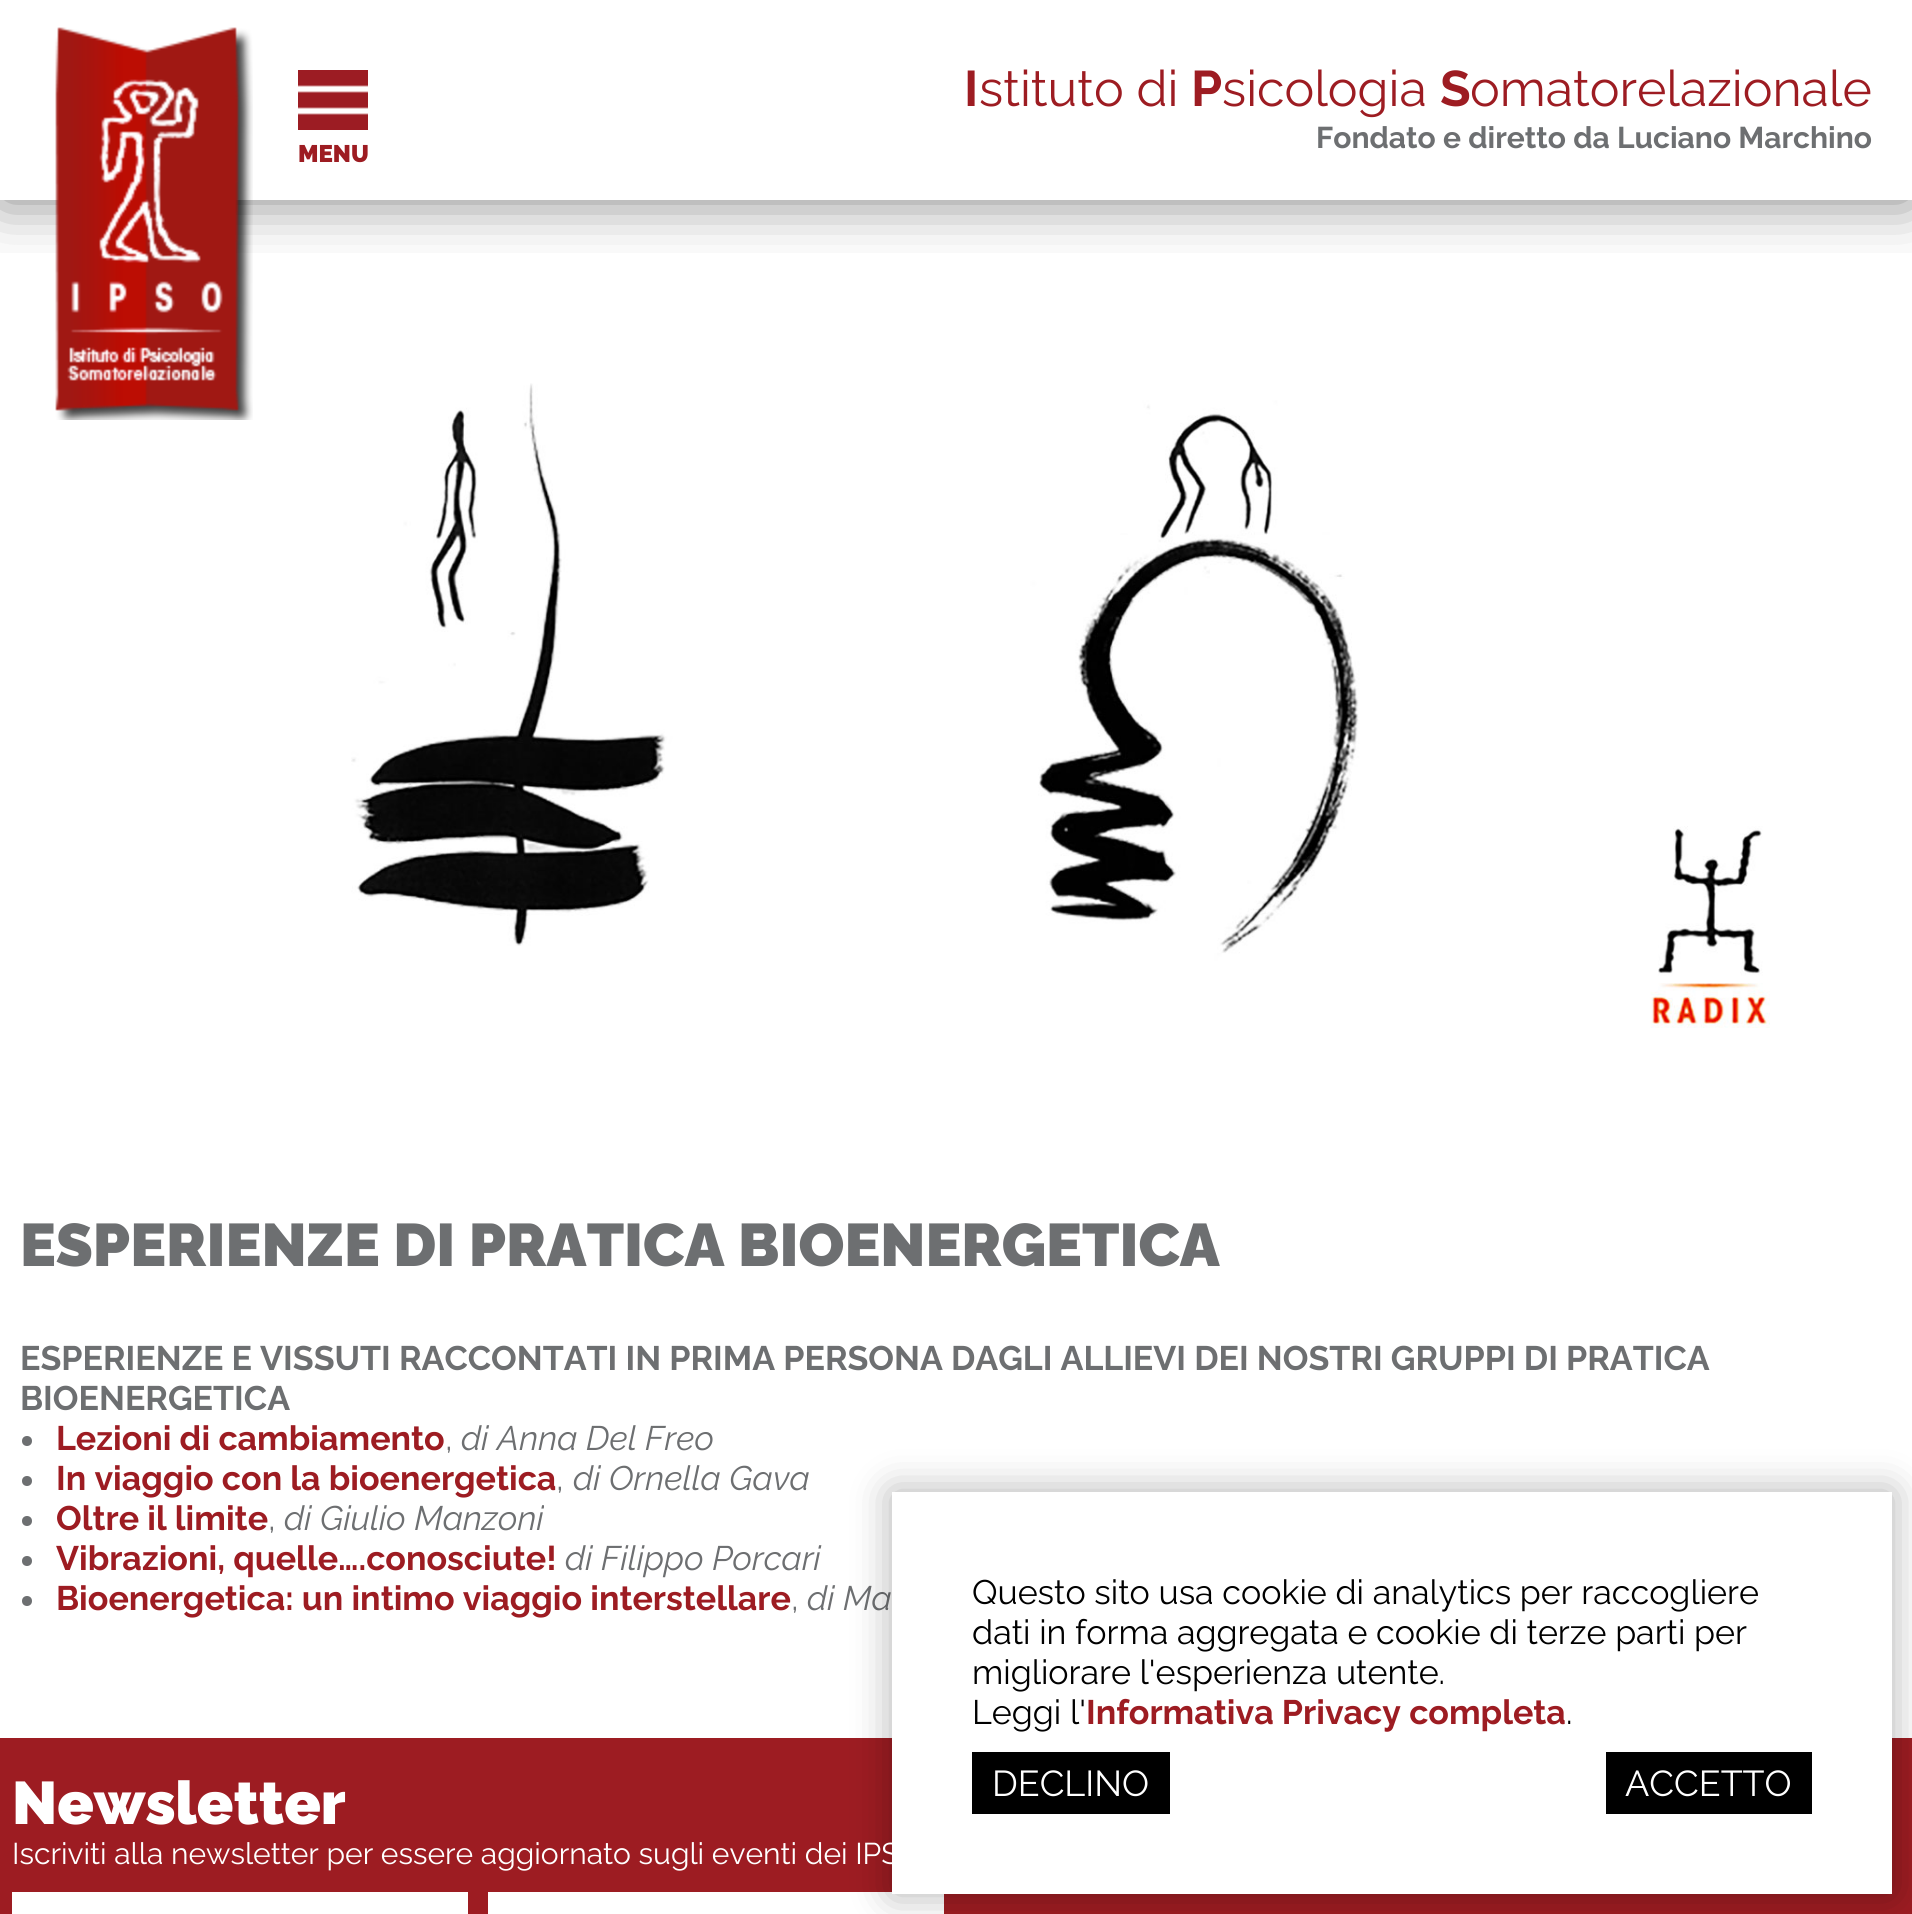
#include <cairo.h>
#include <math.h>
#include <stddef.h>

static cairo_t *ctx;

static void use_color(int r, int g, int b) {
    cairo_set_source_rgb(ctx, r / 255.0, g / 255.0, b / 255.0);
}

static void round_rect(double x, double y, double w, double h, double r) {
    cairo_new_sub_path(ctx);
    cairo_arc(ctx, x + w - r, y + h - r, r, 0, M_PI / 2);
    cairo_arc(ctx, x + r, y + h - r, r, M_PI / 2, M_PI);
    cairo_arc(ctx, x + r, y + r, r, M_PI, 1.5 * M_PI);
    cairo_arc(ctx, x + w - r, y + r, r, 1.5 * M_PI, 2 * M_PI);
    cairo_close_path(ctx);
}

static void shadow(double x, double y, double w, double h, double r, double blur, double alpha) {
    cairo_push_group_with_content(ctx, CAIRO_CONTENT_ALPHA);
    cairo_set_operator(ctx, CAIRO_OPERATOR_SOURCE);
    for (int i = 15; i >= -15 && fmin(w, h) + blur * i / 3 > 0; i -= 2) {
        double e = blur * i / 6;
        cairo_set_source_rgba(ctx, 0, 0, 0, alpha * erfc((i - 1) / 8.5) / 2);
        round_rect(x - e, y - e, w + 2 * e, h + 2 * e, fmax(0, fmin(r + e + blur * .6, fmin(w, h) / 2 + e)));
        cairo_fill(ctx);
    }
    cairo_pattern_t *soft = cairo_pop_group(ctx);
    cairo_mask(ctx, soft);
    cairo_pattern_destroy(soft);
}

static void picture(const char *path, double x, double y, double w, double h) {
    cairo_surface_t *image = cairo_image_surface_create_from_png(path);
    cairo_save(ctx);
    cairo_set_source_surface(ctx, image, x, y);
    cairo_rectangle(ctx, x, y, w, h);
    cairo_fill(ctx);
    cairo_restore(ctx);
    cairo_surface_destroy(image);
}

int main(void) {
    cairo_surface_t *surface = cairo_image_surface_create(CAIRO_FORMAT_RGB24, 1912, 1914);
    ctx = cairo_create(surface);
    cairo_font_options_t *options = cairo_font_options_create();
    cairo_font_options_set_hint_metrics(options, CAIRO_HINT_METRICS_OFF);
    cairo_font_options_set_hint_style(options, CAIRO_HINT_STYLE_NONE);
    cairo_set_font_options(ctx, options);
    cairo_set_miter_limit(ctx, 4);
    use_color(255, 255, 255);
    cairo_paint(ctx);
    cairo_save(ctx);
    cairo_rectangle(ctx, 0, 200, 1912, 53);
    cairo_clip(ctx);
    use_color(0, 0, 0);
    shadow(0, 0, 1912, 200, 0, 30, 0.5);
    cairo_restore(ctx);
    picture("img1.png", 55, 27, 198, 393);
    cairo_select_font_face(ctx, "Raleway", CAIRO_FONT_SLANT_NORMAL, CAIRO_FONT_WEIGHT_BOLD);
    cairo_set_font_size(ctx, 50);
    use_color(157, 28, 34);
    cairo_move_to(ctx, 964, 106);
    cairo_show_text(ctx, "I");
    cairo_select_font_face(ctx, "Raleway", CAIRO_FONT_SLANT_NORMAL, CAIRO_FONT_WEIGHT_NORMAL);
    cairo_move_to(ctx, 979, 106);
    cairo_show_text(ctx, "stituto di");
    cairo_select_font_face(ctx, "Raleway", CAIRO_FONT_SLANT_NORMAL, CAIRO_FONT_WEIGHT_BOLD);
    cairo_move_to(ctx, 1191, 106);
    cairo_show_text(ctx, "P");
    cairo_select_font_face(ctx, "Raleway", CAIRO_FONT_SLANT_NORMAL, CAIRO_FONT_WEIGHT_NORMAL);
    cairo_move_to(ctx, 1222, 106);
    cairo_show_text(ctx, "sicologia");
    cairo_select_font_face(ctx, "Raleway", CAIRO_FONT_SLANT_NORMAL, CAIRO_FONT_WEIGHT_BOLD);
    cairo_move_to(ctx, 1440, 106);
    cairo_show_text(ctx, "S");
    cairo_select_font_face(ctx, "Raleway", CAIRO_FONT_SLANT_NORMAL, CAIRO_FONT_WEIGHT_NORMAL);
    cairo_move_to(ctx, 1470, 106);
    cairo_show_text(ctx, "omatorelazionale");
    cairo_select_font_face(ctx, "Raleway", CAIRO_FONT_SLANT_NORMAL, CAIRO_FONT_WEIGHT_BOLD);
    cairo_set_font_size(ctx, 30);
    use_color(109, 111, 113);
    cairo_move_to(ctx, 1316, 148);
    cairo_show_text(ctx, "Fondato e diretto da Luciano Marchino");
    picture("img2.png", 298, 70, 70, 60);
    cairo_select_font_face(ctx, "Raleway Black", CAIRO_FONT_SLANT_NORMAL, CAIRO_FONT_WEIGHT_NORMAL);
    cairo_set_font_size(ctx, 24);
    use_color(157, 28, 34);
    cairo_move_to(ctx, 298, 162);
    cairo_show_text(ctx, "MENU");
    picture("img3.png", 351, 383, 1419, 645);
    cairo_set_font_size(ctx, 60);
    use_color(109, 111, 113);
    cairo_move_to(ctx, 20, 1266);
    cairo_show_text(ctx, "ESPERIENZE DI PRATICA BIOENERGETICA");
    cairo_select_font_face(ctx, "Raleway", CAIRO_FONT_SLANT_NORMAL, CAIRO_FONT_WEIGHT_BOLD);
    cairo_set_font_size(ctx, 34);
    cairo_move_to(ctx, 20, 1370);
    cairo_show_text(ctx, "ESPERIENZE E VISSUTI RACCONTATI IN PRIMA PERSONA DAGLI ALLIEVI DEI NOSTRI GRUPPI DI PRATICA");
    cairo_move_to(ctx, 20, 1410);
    cairo_show_text(ctx, "BIOENERGETICA");
    cairo_new_path(ctx);
    cairo_arc(ctx, 27, 1441, 5, 0, 2 * M_PI);
    cairo_fill(ctx);
    use_color(157, 28, 34);
    cairo_move_to(ctx, 56, 1450);
    cairo_show_text(ctx, "Lezioni di cambiamento");
    cairo_select_font_face(ctx, "Raleway", CAIRO_FONT_SLANT_ITALIC, CAIRO_FONT_WEIGHT_NORMAL);
    use_color(109, 111, 113);
    cairo_move_to(ctx, 461, 1450);
    cairo_show_text(ctx, "di Anna Del Freo");
    cairo_select_font_face(ctx, "Raleway", CAIRO_FONT_SLANT_NORMAL, CAIRO_FONT_WEIGHT_NORMAL);
    cairo_move_to(ctx, 445, 1450);
    cairo_show_text(ctx, ",");
    cairo_new_path(ctx);
    cairo_arc(ctx, 27, 1481, 5, 0, 2 * M_PI);
    cairo_fill(ctx);
    cairo_select_font_face(ctx, "Raleway", CAIRO_FONT_SLANT_NORMAL, CAIRO_FONT_WEIGHT_BOLD);
    use_color(157, 28, 34);
    cairo_move_to(ctx, 56, 1490);
    cairo_show_text(ctx, "In viaggio con la bioenergetica");
    cairo_select_font_face(ctx, "Raleway", CAIRO_FONT_SLANT_ITALIC, CAIRO_FONT_WEIGHT_NORMAL);
    use_color(109, 111, 113);
    cairo_move_to(ctx, 573, 1490);
    cairo_show_text(ctx, "di Ornella Gava");
    cairo_select_font_face(ctx, "Raleway", CAIRO_FONT_SLANT_NORMAL, CAIRO_FONT_WEIGHT_NORMAL);
    cairo_move_to(ctx, 556, 1490);
    cairo_show_text(ctx, ",");
    cairo_new_path(ctx);
    cairo_arc(ctx, 27, 1521, 5, 0, 2 * M_PI);
    cairo_fill(ctx);
    cairo_select_font_face(ctx, "Raleway", CAIRO_FONT_SLANT_NORMAL, CAIRO_FONT_WEIGHT_BOLD);
    use_color(157, 28, 34);
    cairo_move_to(ctx, 56, 1530);
    cairo_show_text(ctx, "Oltre il limite");
    cairo_select_font_face(ctx, "Raleway", CAIRO_FONT_SLANT_ITALIC, CAIRO_FONT_WEIGHT_NORMAL);
    use_color(109, 111, 113);
    cairo_move_to(ctx, 284, 1530);
    cairo_show_text(ctx, "di Giulio Manzoni");
    cairo_select_font_face(ctx, "Raleway", CAIRO_FONT_SLANT_NORMAL, CAIRO_FONT_WEIGHT_NORMAL);
    cairo_move_to(ctx, 268, 1530);
    cairo_show_text(ctx, ",");
    cairo_new_path(ctx);
    cairo_arc(ctx, 27, 1561, 5, 0, 2 * M_PI);
    cairo_fill(ctx);
    cairo_select_font_face(ctx, "Raleway", CAIRO_FONT_SLANT_NORMAL, CAIRO_FONT_WEIGHT_BOLD);
    use_color(157, 28, 34);
    cairo_move_to(ctx, 56, 1570);
    cairo_show_text(ctx, "Vibrazioni, quelle….conosciute!");
    cairo_select_font_face(ctx, "Raleway", CAIRO_FONT_SLANT_ITALIC, CAIRO_FONT_WEIGHT_NORMAL);
    use_color(109, 111, 113);
    cairo_move_to(ctx, 565, 1570);
    cairo_show_text(ctx, "di Filippo Porcari");
    cairo_new_path(ctx);
    cairo_arc(ctx, 27, 1601, 5, 0, 2 * M_PI);
    cairo_fill(ctx);
    cairo_select_font_face(ctx, "Raleway", CAIRO_FONT_SLANT_NORMAL, CAIRO_FONT_WEIGHT_BOLD);
    use_color(157, 28, 34);
    cairo_move_to(ctx, 56, 1610);
    cairo_show_text(ctx, "Bioenergetica: un intimo viaggio interstellare");
    cairo_select_font_face(ctx, "Raleway", CAIRO_FONT_SLANT_ITALIC, CAIRO_FONT_WEIGHT_NORMAL);
    use_color(109, 111, 113);
    cairo_move_to(ctx, 807, 1610);
    cairo_show_text(ctx, "di Ma");
    cairo_select_font_face(ctx, "Raleway", CAIRO_FONT_SLANT_NORMAL, CAIRO_FONT_WEIGHT_NORMAL);
    cairo_move_to(ctx, 791, 1610);
    cairo_show_text(ctx, ",");
    use_color(157, 28, 34);
    cairo_rectangle(ctx, 0, 1738, 1912, 176);
    cairo_fill(ctx);
    use_color(255, 255, 255);
    cairo_rectangle(ctx, 488, 1892, 456, 22);
    cairo_fill(ctx);
    use_color(0, 0, 0);
    shadow(892, 1492, 1000, 402, 0, 20, 0.31);
    use_color(255, 255, 255);
    cairo_rectangle(ctx, 892, 1492, 1000, 402);
    cairo_fill(ctx);
    use_color(0, 0, 0);
    cairo_move_to(ctx, 972, 1604);
    cairo_show_text(ctx, "Questo sito usa cookie di analytics per raccogliere");
    cairo_move_to(ctx, 972, 1644);
    cairo_show_text(ctx, "dati in forma aggregata e cookie di terze parti per");
    cairo_move_to(ctx, 972, 1684);
    cairo_show_text(ctx, "migliorare l'esperienza utente.");
    cairo_move_to(ctx, 972, 1724);
    cairo_show_text(ctx, "Leggi l'");
    cairo_select_font_face(ctx, "Raleway", CAIRO_FONT_SLANT_NORMAL, CAIRO_FONT_WEIGHT_BOLD);
    use_color(157, 28, 34);
    cairo_move_to(ctx, 1086, 1724);
    cairo_show_text(ctx, "Informativa Privacy completa");
    cairo_select_font_face(ctx, "Raleway", CAIRO_FONT_SLANT_NORMAL, CAIRO_FONT_WEIGHT_NORMAL);
    use_color(0, 0, 0);
    cairo_move_to(ctx, 1566, 1724);
    cairo_show_text(ctx, ".");
    cairo_rectangle(ctx, 972, 1752, 198, 62);
    cairo_fill(ctx);
    cairo_set_font_size(ctx, 36);
    use_color(255, 255, 255);
    cairo_move_to(ctx, 992, 1796);
    cairo_show_text(ctx, "DECLINO");
    use_color(0, 0, 0);
    cairo_rectangle(ctx, 1606, 1752, 206, 62);
    cairo_fill(ctx);
    use_color(255, 255, 255);
    cairo_move_to(ctx, 1625, 1796);
    cairo_show_text(ctx, "ACCETTO");
    cairo_select_font_face(ctx, "Raleway Black", CAIRO_FONT_SLANT_NORMAL, CAIRO_FONT_WEIGHT_NORMAL);
    cairo_set_font_size(ctx, 60);
    cairo_move_to(ctx, 12, 1824);
    cairo_show_text(ctx, "Newsletter");
    cairo_select_font_face(ctx, "Raleway", CAIRO_FONT_SLANT_NORMAL, CAIRO_FONT_WEIGHT_NORMAL);
    cairo_set_font_size(ctx, 30);
    cairo_move_to(ctx, 12, 1864);
    cairo_show_text(ctx, "Iscriviti alla newsletter per essere aggiornato sugli eventi dei IPS");
    cairo_rectangle(ctx, 12, 1892, 456, 22);
    cairo_fill(ctx);
    cairo_surface_write_to_png(surface, "result.png");
    cairo_font_options_destroy(options);
    cairo_destroy(ctx);
    cairo_surface_destroy(surface);
    return 0;
}
